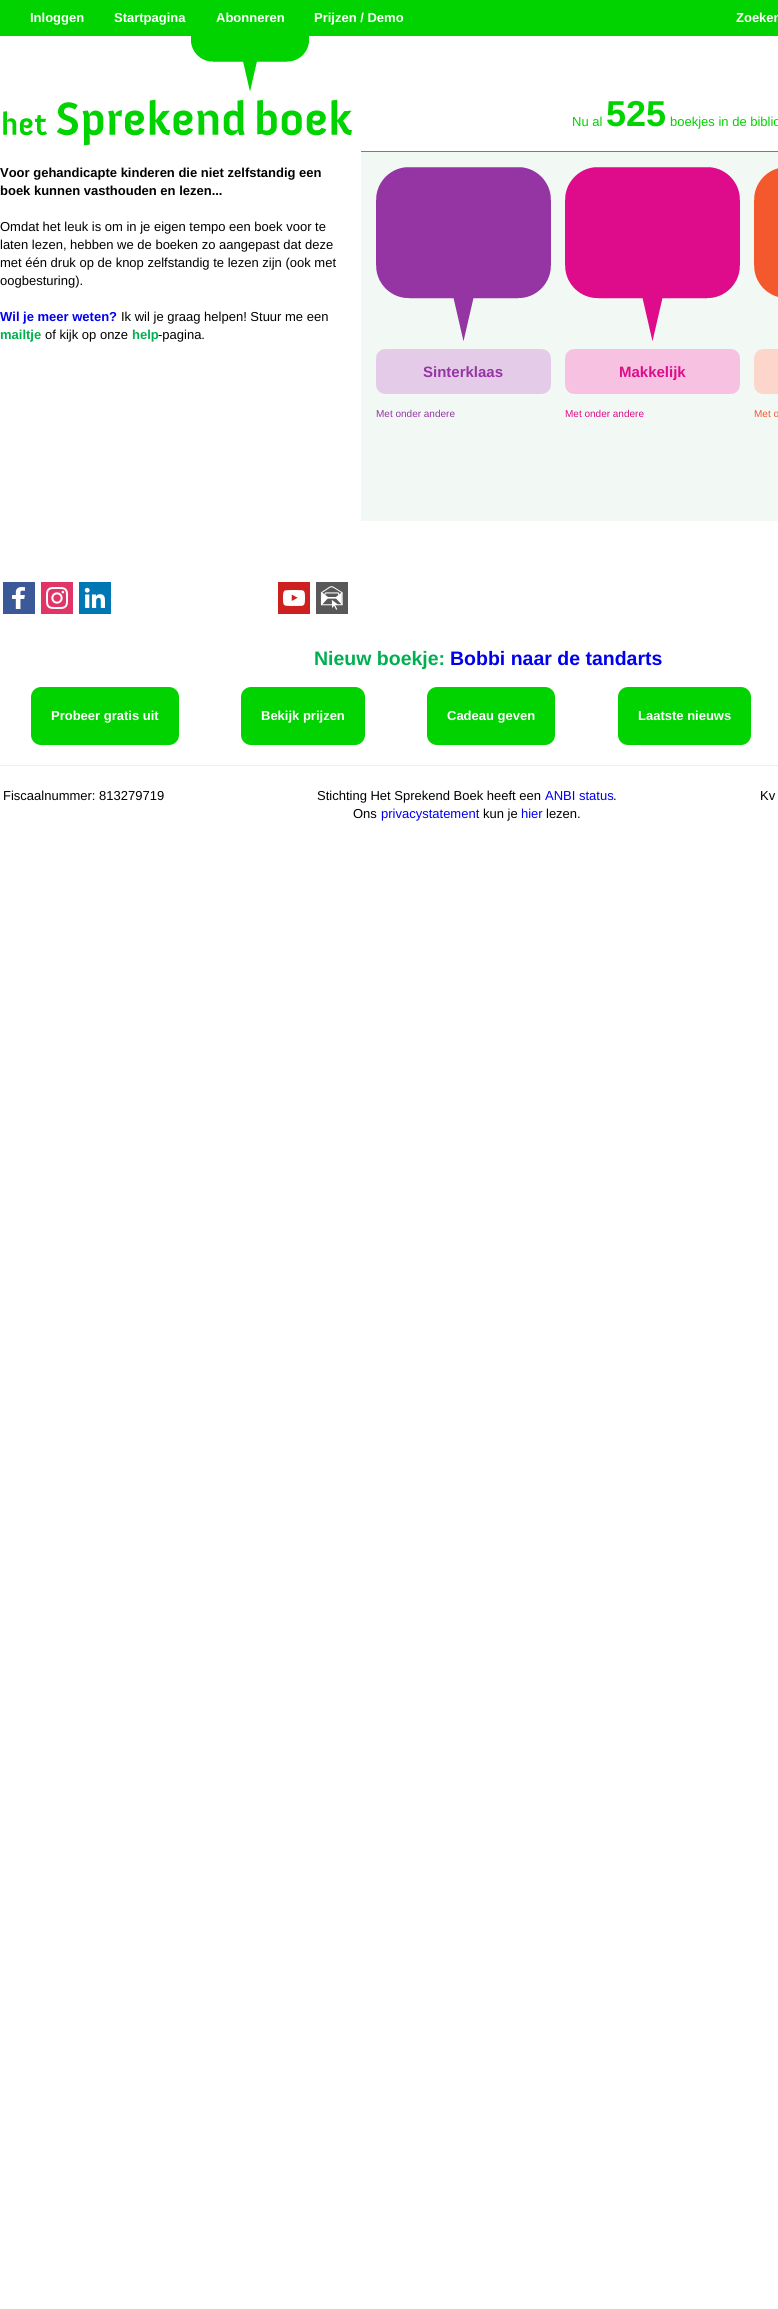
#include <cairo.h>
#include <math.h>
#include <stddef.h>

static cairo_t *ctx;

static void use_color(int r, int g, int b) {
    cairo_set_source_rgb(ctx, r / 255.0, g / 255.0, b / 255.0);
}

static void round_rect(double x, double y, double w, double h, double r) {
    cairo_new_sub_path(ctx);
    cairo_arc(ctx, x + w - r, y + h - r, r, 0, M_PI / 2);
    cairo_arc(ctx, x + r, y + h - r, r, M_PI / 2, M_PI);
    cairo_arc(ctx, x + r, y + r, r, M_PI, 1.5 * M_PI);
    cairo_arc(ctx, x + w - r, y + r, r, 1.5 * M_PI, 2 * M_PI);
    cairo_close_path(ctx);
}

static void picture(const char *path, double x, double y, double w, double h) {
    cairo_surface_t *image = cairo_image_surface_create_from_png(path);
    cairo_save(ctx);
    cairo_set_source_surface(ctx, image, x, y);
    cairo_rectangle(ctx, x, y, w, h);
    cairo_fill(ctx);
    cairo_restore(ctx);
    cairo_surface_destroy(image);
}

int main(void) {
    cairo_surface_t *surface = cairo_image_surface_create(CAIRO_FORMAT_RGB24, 778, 2309);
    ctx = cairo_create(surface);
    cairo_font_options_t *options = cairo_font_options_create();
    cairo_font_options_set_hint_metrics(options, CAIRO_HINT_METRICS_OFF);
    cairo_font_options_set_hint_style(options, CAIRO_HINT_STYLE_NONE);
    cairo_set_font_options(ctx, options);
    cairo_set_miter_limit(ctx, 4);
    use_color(255, 255, 255);
    cairo_paint(ctx);
    use_color(1, 211, 0);
    cairo_rectangle(ctx, 0, 0, 778, 36);
    cairo_fill(ctx);
    cairo_select_font_face(ctx, "Liberation Sans", CAIRO_FONT_SLANT_NORMAL, CAIRO_FONT_WEIGHT_BOLD);
    cairo_set_font_size(ctx, 13);
    use_color(255, 255, 255);
    cairo_move_to(ctx, 30, 22);
    cairo_show_text(ctx, "Inloggen");
    cairo_move_to(ctx, 114, 22);
    cairo_show_text(ctx, "Startpagina");
    cairo_move_to(ctx, 216, 22);
    cairo_show_text(ctx, "Abonneren");
    cairo_move_to(ctx, 314, 22);
    cairo_show_text(ctx, "Prijzen / Demo");
    cairo_move_to(ctx, 736, 22);
    cairo_show_text(ctx, "Zoeken");
    picture("img1.png", 3, 36, 349, 110);
    cairo_select_font_face(ctx, "Liberation Sans", CAIRO_FONT_SLANT_NORMAL, CAIRO_FONT_WEIGHT_NORMAL);
    use_color(1, 211, 0);
    cairo_move_to(ctx, 572, 126);
    cairo_show_text(ctx, "Nu al");
    cairo_select_font_face(ctx, "Liberation Sans", CAIRO_FONT_SLANT_NORMAL, CAIRO_FONT_WEIGHT_BOLD);
    cairo_set_font_size(ctx, 36);
    cairo_move_to(ctx, 606, 126);
    cairo_show_text(ctx, "525");
    cairo_select_font_face(ctx, "Liberation Sans", CAIRO_FONT_SLANT_NORMAL, CAIRO_FONT_WEIGHT_NORMAL);
    cairo_set_font_size(ctx, 13);
    cairo_move_to(ctx, 670, 126);
    cairo_show_text(ctx, "boekjes in de biblio");
    cairo_select_font_face(ctx, "Liberation Sans", CAIRO_FONT_SLANT_NORMAL, CAIRO_FONT_WEIGHT_BOLD);
    use_color(0, 0, 0);
    cairo_move_to(ctx, 0, 177);
    cairo_show_text(ctx, "Voor gehandicapte kinderen die niet zelfstandig een");
    cairo_move_to(ctx, 0, 195);
    cairo_show_text(ctx, "boek kunnen vasthouden en lezen...");
    cairo_select_font_face(ctx, "Liberation Sans", CAIRO_FONT_SLANT_NORMAL, CAIRO_FONT_WEIGHT_NORMAL);
    cairo_move_to(ctx, 0, 231);
    cairo_show_text(ctx, "Omdat het leuk is om in je eigen tempo een boek voor te");
    cairo_move_to(ctx, 0, 249);
    cairo_show_text(ctx, "laten lezen, hebben we de boeken zo aangepast dat deze");
    cairo_move_to(ctx, 0, 267);
    cairo_show_text(ctx, "met één druk op de knop zelfstandig te lezen zijn (ook met");
    cairo_move_to(ctx, 0, 285);
    cairo_show_text(ctx, "oogbesturing).");
    cairo_select_font_face(ctx, "Liberation Sans", CAIRO_FONT_SLANT_NORMAL, CAIRO_FONT_WEIGHT_BOLD);
    use_color(0, 0, 238);
    cairo_move_to(ctx, 0, 321);
    cairo_show_text(ctx, "Wil je meer weten?");
    cairo_select_font_face(ctx, "Liberation Sans", CAIRO_FONT_SLANT_NORMAL, CAIRO_FONT_WEIGHT_NORMAL);
    use_color(0, 0, 0);
    cairo_move_to(ctx, 121, 321);
    cairo_show_text(ctx, "Ik wil je graag helpen! Stuur me een");
    cairo_select_font_face(ctx, "Liberation Sans", CAIRO_FONT_SLANT_NORMAL, CAIRO_FONT_WEIGHT_BOLD);
    use_color(0, 176, 80);
    cairo_move_to(ctx, 0, 339);
    cairo_show_text(ctx, "mailtje");
    cairo_select_font_face(ctx, "Liberation Sans", CAIRO_FONT_SLANT_NORMAL, CAIRO_FONT_WEIGHT_NORMAL);
    use_color(0, 0, 0);
    cairo_move_to(ctx, 45, 339);
    cairo_show_text(ctx, "of kijk op onze");
    cairo_select_font_face(ctx, "Liberation Sans", CAIRO_FONT_SLANT_NORMAL, CAIRO_FONT_WEIGHT_BOLD);
    use_color(0, 176, 80);
    cairo_move_to(ctx, 132, 339);
    cairo_show_text(ctx, "help");
    cairo_select_font_face(ctx, "Liberation Sans", CAIRO_FONT_SLANT_NORMAL, CAIRO_FONT_WEIGHT_NORMAL);
    use_color(0, 0, 0);
    cairo_move_to(ctx, 158, 339);
    cairo_show_text(ctx, "-pagina.");
    use_color(59, 89, 152);
    cairo_rectangle(ctx, 3, 582, 32, 32);
    cairo_fill(ctx);
    picture("img2.png", 12, 587, 13, 22);
    use_color(224, 53, 102);
    cairo_rectangle(ctx, 41, 582, 32, 32);
    cairo_fill(ctx);
    picture("img3.png", 46, 587, 22, 22);
    use_color(0, 119, 181);
    cairo_rectangle(ctx, 79, 582, 32, 32);
    cairo_fill(ctx);
    picture("img4.png", 84, 587, 21, 21);
    use_color(205, 32, 31);
    cairo_rectangle(ctx, 278, 582, 32, 32);
    cairo_fill(ctx);
    picture("img5.png", 283, 590, 22, 16);
    use_color(88, 88, 88);
    cairo_rectangle(ctx, 316, 582, 32, 32);
    cairo_fill(ctx);
    picture("img6.png", 320, 586, 23, 24);
    use_color(242, 249, 244);
    cairo_rectangle(ctx, 361, 152, 417, 369);
    cairo_fill(ctx);
    use_color(1, 211, 0);
    cairo_rectangle(ctx, 361, 151, 417, 1);
    cairo_fill(ctx);
    use_color(149, 53, 164);
    cairo_rectangle(ctx, 376, 167, 175, 227);
    cairo_fill(ctx);
    picture("img7.png", 369, 160, 189, 189);
    picture("img8.png", 369, 349, 189, 45);
    cairo_select_font_face(ctx, "Liberation Sans", CAIRO_FONT_SLANT_NORMAL, CAIRO_FONT_WEIGHT_BOLD);
    cairo_set_font_size(ctx, 15);
    cairo_move_to(ctx, 423, 377);
    cairo_show_text(ctx, "Sinterklaas");
    cairo_select_font_face(ctx, "Liberation Sans", CAIRO_FONT_SLANT_NORMAL, CAIRO_FONT_WEIGHT_NORMAL);
    cairo_set_font_size(ctx, 10);
    cairo_move_to(ctx, 376, 417);
    cairo_show_text(ctx, "Met onder andere");
    use_color(222, 12, 138);
    cairo_rectangle(ctx, 565, 167, 175, 227);
    cairo_fill(ctx);
    picture("img9.png", 558, 160, 189, 189);
    picture("img10.png", 558, 349, 189, 45);
    cairo_select_font_face(ctx, "Liberation Sans", CAIRO_FONT_SLANT_NORMAL, CAIRO_FONT_WEIGHT_BOLD);
    cairo_set_font_size(ctx, 15);
    cairo_move_to(ctx, 619, 377);
    cairo_show_text(ctx, "Makkelijk");
    cairo_select_font_face(ctx, "Liberation Sans", CAIRO_FONT_SLANT_NORMAL, CAIRO_FONT_WEIGHT_NORMAL);
    cairo_set_font_size(ctx, 10);
    cairo_move_to(ctx, 565, 417);
    cairo_show_text(ctx, "Met onder andere");
    use_color(244, 89, 46);
    cairo_rectangle(ctx, 754, 168, 24, 226);
    cairo_fill(ctx);
    picture("img11.png", 747, 160, 31, 189);
    picture("img12.png", 747, 349, 31, 45);
    cairo_move_to(ctx, 754, 417);
    cairo_show_text(ctx, "Met o");
    cairo_select_font_face(ctx, "Liberation Sans", CAIRO_FONT_SLANT_NORMAL, CAIRO_FONT_WEIGHT_BOLD);
    cairo_set_font_size(ctx, 19.5);
    use_color(0, 176, 80);
    cairo_move_to(ctx, 314, 665);
    cairo_show_text(ctx, "Nieuw boekje:");
    use_color(0, 0, 238);
    cairo_move_to(ctx, 450, 665);
    cairo_show_text(ctx, "Bobbi naar de tandarts");
    use_color(1, 211, 0);
    round_rect(31, 687, 148, 58, 10);
    cairo_fill(ctx);
    cairo_set_font_size(ctx, 13);
    use_color(255, 255, 255);
    cairo_move_to(ctx, 51, 720);
    cairo_show_text(ctx, "Probeer gratis uit");
    use_color(1, 211, 0);
    round_rect(241, 687, 124, 58, 10);
    cairo_fill(ctx);
    use_color(255, 255, 255);
    cairo_move_to(ctx, 261, 720);
    cairo_show_text(ctx, "Bekijk prijzen");
    use_color(1, 211, 0);
    round_rect(427, 687, 128, 58, 10);
    cairo_fill(ctx);
    use_color(255, 255, 255);
    cairo_move_to(ctx, 447, 720);
    cairo_show_text(ctx, "Cadeau geven");
    use_color(1, 211, 0);
    round_rect(618, 687, 133, 58, 10);
    cairo_fill(ctx);
    use_color(255, 255, 255);
    cairo_move_to(ctx, 638, 720);
    cairo_show_text(ctx, "Laatste nieuws");
    use_color(238, 238, 238);
    cairo_rectangle(ctx, 0, 765, 778, 1);
    cairo_fill(ctx);
    cairo_select_font_face(ctx, "Liberation Sans", CAIRO_FONT_SLANT_NORMAL, CAIRO_FONT_WEIGHT_NORMAL);
    use_color(0, 0, 0);
    cairo_move_to(ctx, 3, 800);
    cairo_show_text(ctx, "Fiscaalnummer: 813279719");
    cairo_move_to(ctx, 317, 800);
    cairo_show_text(ctx, "Stichting Het Sprekend Boek heeft een");
    use_color(0, 0, 238);
    cairo_move_to(ctx, 545, 800);
    cairo_show_text(ctx, "ANBI status");
    use_color(0, 0, 0);
    cairo_move_to(ctx, 613, 800);
    cairo_show_text(ctx, ".");
    cairo_move_to(ctx, 353, 818);
    cairo_show_text(ctx, "Ons");
    use_color(0, 0, 238);
    cairo_move_to(ctx, 381, 818);
    cairo_show_text(ctx, "privacystatement");
    use_color(0, 0, 0);
    cairo_move_to(ctx, 483, 818);
    cairo_show_text(ctx, "kun je");
    use_color(0, 0, 238);
    cairo_move_to(ctx, 521, 818);
    cairo_show_text(ctx, "hier");
    use_color(0, 0, 0);
    cairo_move_to(ctx, 546, 818);
    cairo_show_text(ctx, "lezen.");
    cairo_move_to(ctx, 760, 800);
    cairo_show_text(ctx, "Kv");
    cairo_surface_write_to_png(surface, "result.png");
    cairo_font_options_destroy(options);
    cairo_destroy(ctx);
    cairo_surface_destroy(surface);
    return 0;
}
